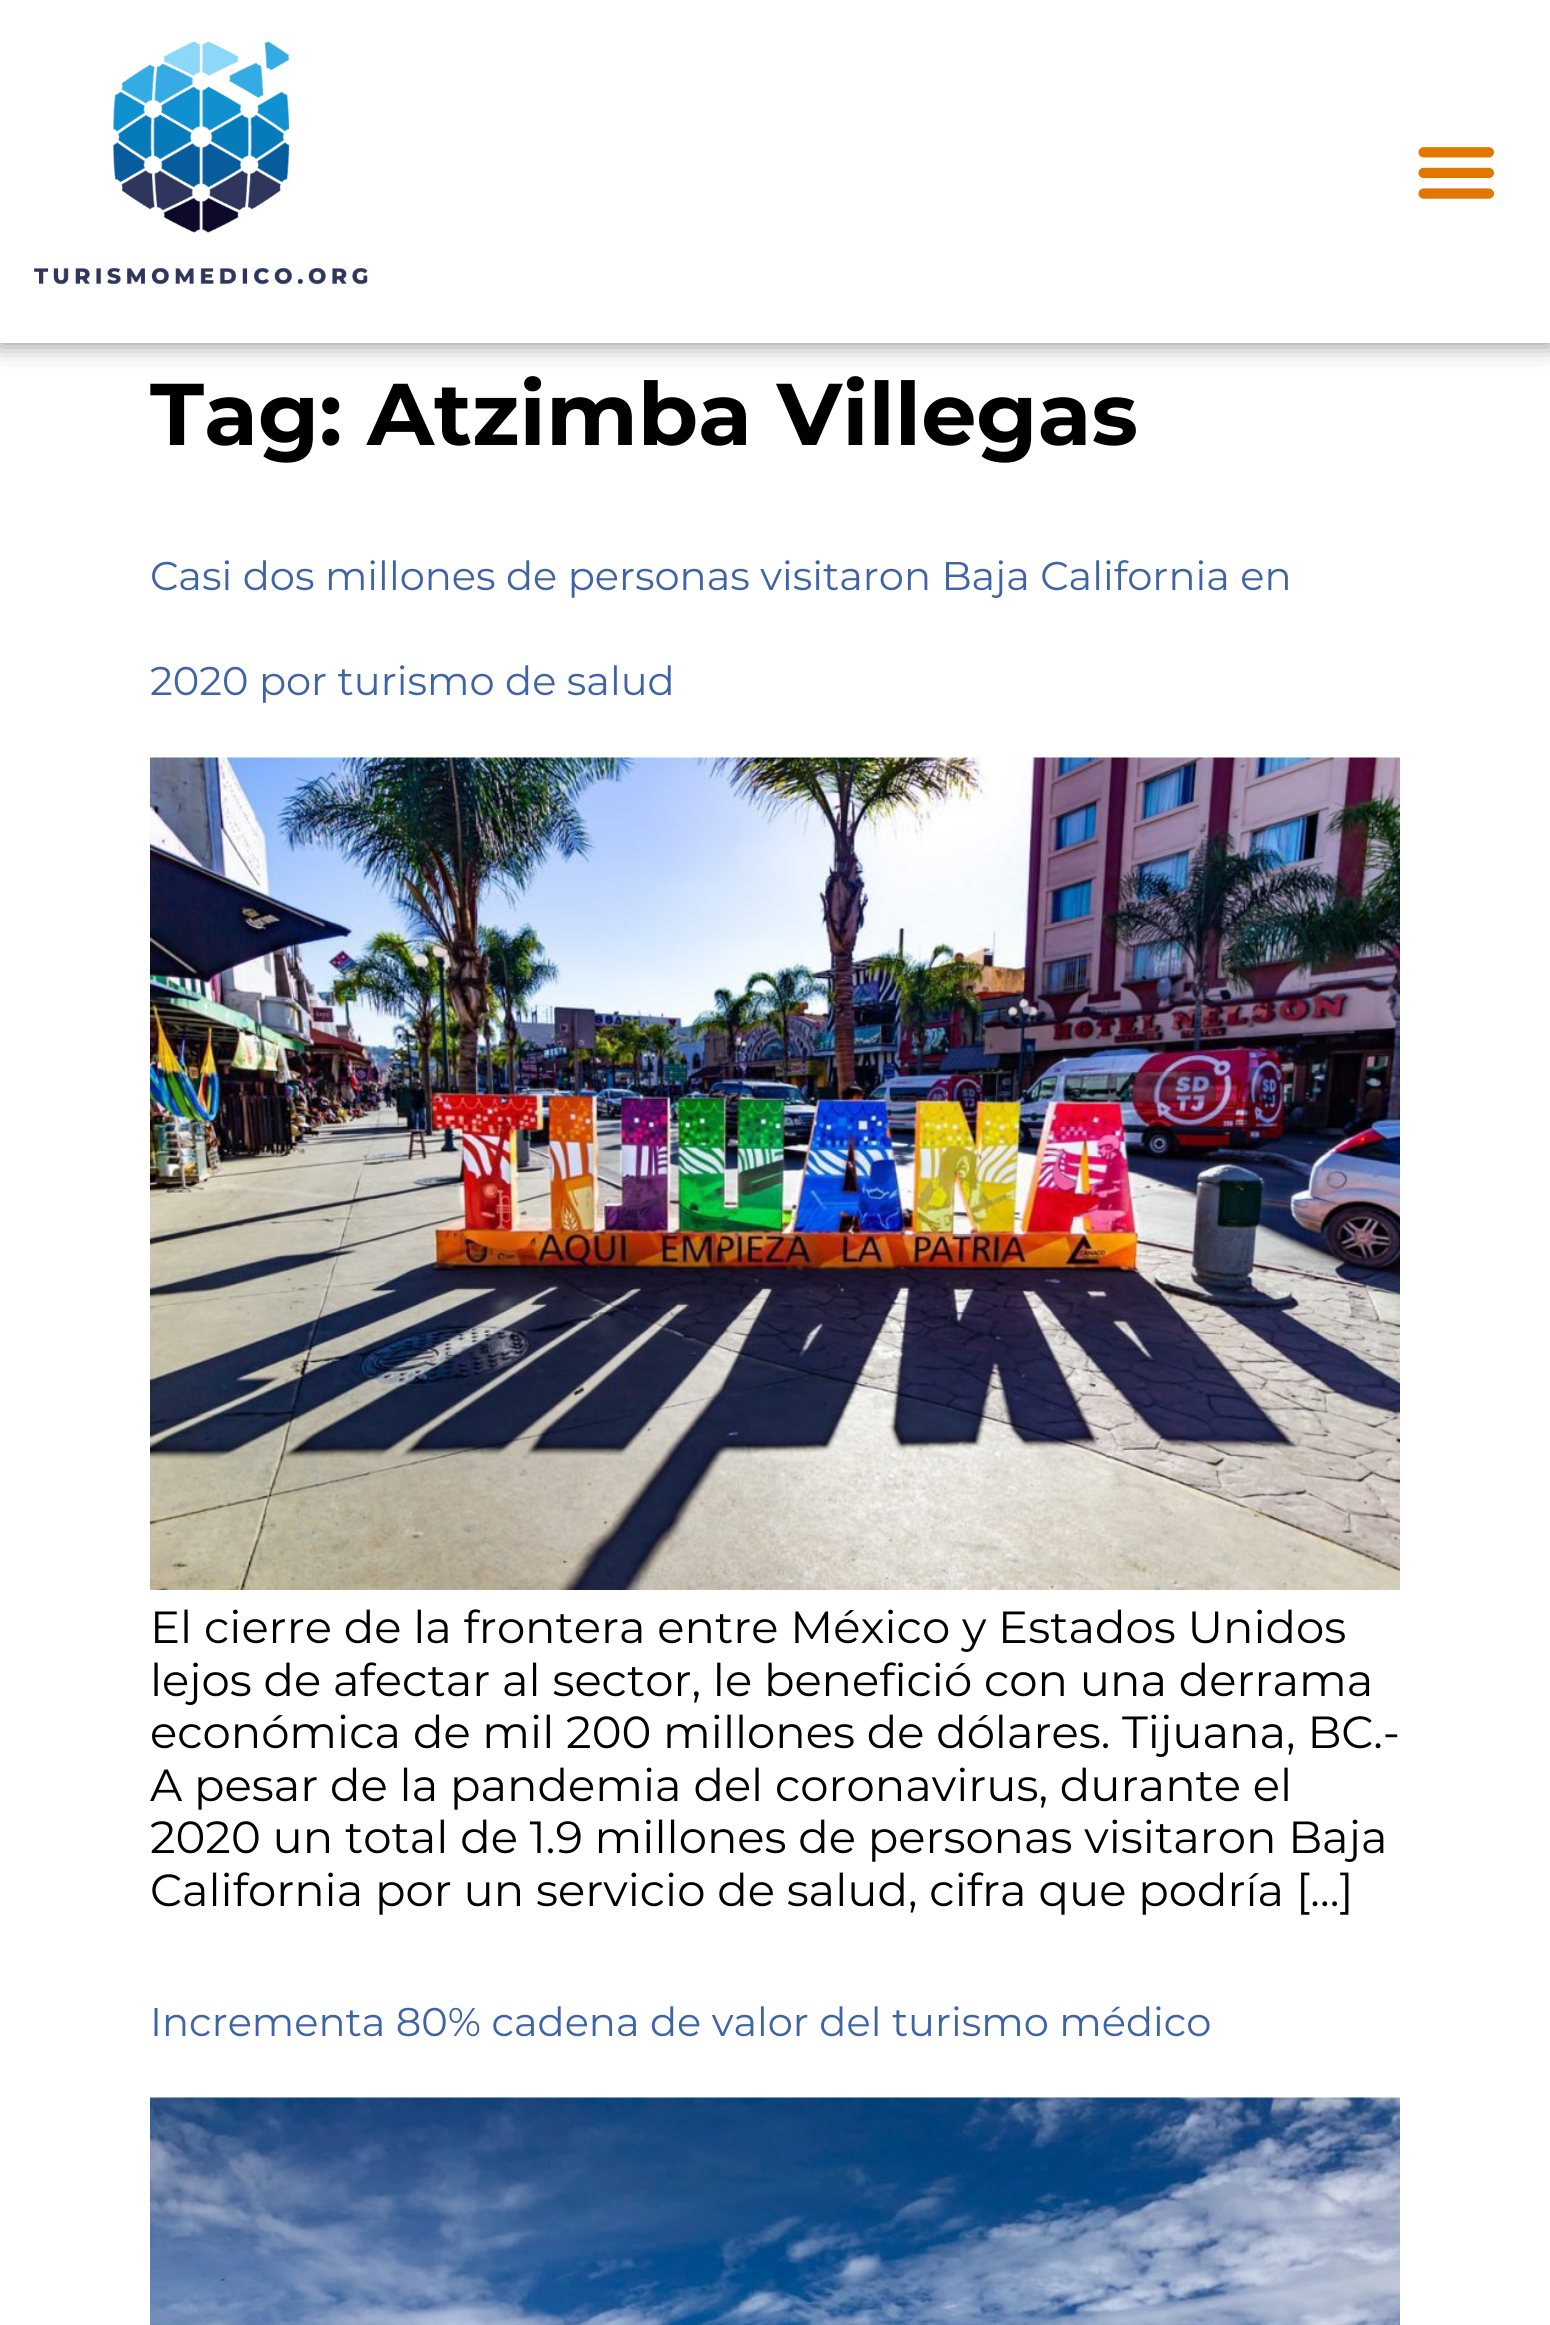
#include <cairo.h>
#include <math.h>
#include <stddef.h>

static cairo_t *ctx;

static void use_color(int r, int g, int b) {
    cairo_set_source_rgb(ctx, r / 255.0, g / 255.0, b / 255.0);
}

static void round_rect(double x, double y, double w, double h, double r) {
    cairo_new_sub_path(ctx);
    cairo_arc(ctx, x + w - r, y + h - r, r, 0, M_PI / 2);
    cairo_arc(ctx, x + r, y + h - r, r, M_PI / 2, M_PI);
    cairo_arc(ctx, x + r, y + r, r, M_PI, 1.5 * M_PI);
    cairo_arc(ctx, x + w - r, y + r, r, 1.5 * M_PI, 2 * M_PI);
    cairo_close_path(ctx);
}

static void shadow(double x, double y, double w, double h, double r, double blur, double alpha) {
    cairo_push_group_with_content(ctx, CAIRO_CONTENT_ALPHA);
    cairo_set_operator(ctx, CAIRO_OPERATOR_SOURCE);
    for (int i = 15; i >= -15 && fmin(w, h) + blur * i / 3 > 0; i -= 2) {
        double e = blur * i / 6;
        cairo_set_source_rgba(ctx, 0, 0, 0, alpha * erfc((i - 1) / 8.5) / 2);
        round_rect(x - e, y - e, w + 2 * e, h + 2 * e, fmax(0, fmin(r + e + blur * .6, fmin(w, h) / 2 + e)));
        cairo_fill(ctx);
    }
    cairo_pattern_t *soft = cairo_pop_group(ctx);
    cairo_mask(ctx, soft);
    cairo_pattern_destroy(soft);
}

static void picture(const char *path, double x, double y, double w, double h) {
    cairo_surface_t *image = cairo_image_surface_create_from_png(path);
    cairo_save(ctx);
    cairo_set_source_surface(ctx, image, x, y);
    cairo_rectangle(ctx, x, y, w, h);
    cairo_fill(ctx);
    cairo_restore(ctx);
    cairo_surface_destroy(image);
}

int main(void) {
    cairo_surface_t *surface = cairo_image_surface_create(CAIRO_FORMAT_RGB24, 1550, 2325);
    ctx = cairo_create(surface);
    cairo_font_options_t *options = cairo_font_options_create();
    cairo_font_options_set_hint_metrics(options, CAIRO_HINT_METRICS_OFF);
    cairo_font_options_set_hint_style(options, CAIRO_HINT_STYLE_NONE);
    cairo_set_font_options(ctx, options);
    cairo_set_miter_limit(ctx, 4);
    use_color(255, 255, 255);
    cairo_paint(ctx);
    use_color(0, 0, 0);
    shadow(0, 0, 1550, 343, 0, 12.5, 0.5);
    use_color(255, 255, 255);
    cairo_rectangle(ctx, 0, 0, 1550, 343);
    cairo_fill(ctx);
    picture("img1.png", 34, 41, 334, 244);
    picture("img2.png", 1418, 147, 76, 52);
    cairo_select_font_face(ctx, "Montserrat", CAIRO_FONT_SLANT_NORMAL, CAIRO_FONT_WEIGHT_BOLD);
    cairo_set_font_size(ctx, 87.5);
    use_color(0, 0, 0);
    cairo_move_to(ctx, 150, 445);
    cairo_show_text(ctx, "Tag: Atzimba Villegas");
    cairo_select_font_face(ctx, "Montserrat", CAIRO_FONT_SLANT_NORMAL, CAIRO_FONT_WEIGHT_NORMAL);
    cairo_set_font_size(ctx, 40);
    use_color(63, 100, 166);
    cairo_move_to(ctx, 150, 590);
    cairo_show_text(ctx, "Casi dos millones de personas visitaron Baja California en");
    cairo_move_to(ctx, 150, 695);
    cairo_show_text(ctx, "2020 por turismo de salud");
    picture("img3.png", 150, 757, 1250, 833);
    cairo_set_font_size(ctx, 45);
    use_color(0, 0, 0);
    cairo_move_to(ctx, 150, 1643);
    cairo_show_text(ctx, "El cierre de la frontera entre México y Estados Unidos");
    cairo_move_to(ctx, 150, 1696);
    cairo_show_text(ctx, "lejos de afectar al sector, le benefició con una derrama");
    cairo_move_to(ctx, 150, 1748);
    cairo_show_text(ctx, "económica de mil 200 millones de dólares. Tijuana, BC.-");
    cairo_move_to(ctx, 150, 1801);
    cairo_show_text(ctx, "A pesar de la pandemia del coronavirus, durante el");
    cairo_move_to(ctx, 150, 1853);
    cairo_show_text(ctx, "2020 un total de 1.9 millones de personas visitaron Baja");
    cairo_move_to(ctx, 150, 1906);
    cairo_show_text(ctx, "California por un servicio de salud, cifra que podría […]");
    cairo_set_font_size(ctx, 40);
    use_color(63, 100, 166);
    cairo_move_to(ctx, 150, 2036);
    cairo_show_text(ctx, "Incrementa 80% cadena de valor del turismo médico");
    picture("img4.png", 150, 2097, 1250, 228);
    cairo_surface_write_to_png(surface, "result.png");
    cairo_font_options_destroy(options);
    cairo_destroy(ctx);
    cairo_surface_destroy(surface);
    return 0;
}
